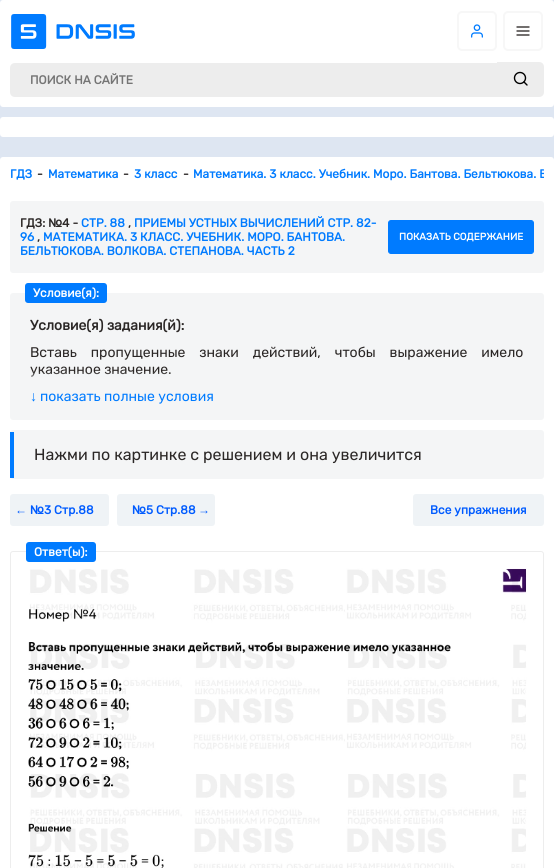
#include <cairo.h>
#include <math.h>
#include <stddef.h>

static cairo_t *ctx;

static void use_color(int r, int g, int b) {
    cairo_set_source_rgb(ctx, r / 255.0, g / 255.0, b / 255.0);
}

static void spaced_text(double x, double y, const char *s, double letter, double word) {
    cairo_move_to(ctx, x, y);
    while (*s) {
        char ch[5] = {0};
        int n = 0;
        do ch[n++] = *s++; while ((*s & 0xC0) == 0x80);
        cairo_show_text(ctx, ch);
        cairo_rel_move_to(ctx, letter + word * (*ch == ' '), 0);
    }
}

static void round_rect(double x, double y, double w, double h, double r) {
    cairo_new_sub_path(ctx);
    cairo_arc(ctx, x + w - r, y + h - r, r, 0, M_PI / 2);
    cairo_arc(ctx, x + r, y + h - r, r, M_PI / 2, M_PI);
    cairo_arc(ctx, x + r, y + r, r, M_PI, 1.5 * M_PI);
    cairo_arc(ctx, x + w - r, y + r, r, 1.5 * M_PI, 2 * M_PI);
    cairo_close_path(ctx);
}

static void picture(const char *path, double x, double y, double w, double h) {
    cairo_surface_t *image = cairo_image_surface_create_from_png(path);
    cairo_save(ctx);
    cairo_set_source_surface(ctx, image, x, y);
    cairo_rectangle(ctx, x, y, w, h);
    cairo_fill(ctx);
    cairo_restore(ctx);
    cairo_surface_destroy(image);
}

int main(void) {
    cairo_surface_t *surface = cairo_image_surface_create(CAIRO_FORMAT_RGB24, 554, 868);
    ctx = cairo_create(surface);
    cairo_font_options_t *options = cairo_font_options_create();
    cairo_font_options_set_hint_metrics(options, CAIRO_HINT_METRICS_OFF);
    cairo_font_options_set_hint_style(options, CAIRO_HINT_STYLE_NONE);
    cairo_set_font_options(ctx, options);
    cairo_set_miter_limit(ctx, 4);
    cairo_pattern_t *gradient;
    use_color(222, 230, 242);
    cairo_paint(ctx);
    use_color(255, 255, 255);
    round_rect(0, 0, 554, 107, 3);
    cairo_fill(ctx);
    picture("img1.png", 11, 14, 124, 35);
    round_rect(458, 12, 38, 38, 4);
    use_color(247, 247, 247);
    cairo_stroke(ctx);
    picture("img2.png", 471, 24, 12, 14);
    round_rect(504, 12, 38, 38, 4);
    cairo_stroke(ctx);
    picture("img3.png", 516, 26, 14, 10);
    use_color(237, 237, 237);
    cairo_new_path(ctx);
    cairo_move_to(ctx, 15, 63);
    cairo_line_to(ctx, 497, 63);
    cairo_line_to(ctx, 497, 97);
    cairo_line_to(ctx, 15, 97);
    cairo_curve_to(ctx, 12, 97, 10, 95, 10, 92);
    cairo_line_to(ctx, 10, 68);
    cairo_curve_to(ctx, 10, 65, 12, 63, 15, 63);
    cairo_close_path(ctx);
    cairo_fill(ctx);
    cairo_select_font_face(ctx, "Rubik", CAIRO_FONT_SLANT_NORMAL, CAIRO_FONT_WEIGHT_BOLD);
    cairo_set_font_size(ctx, 12);
    use_color(117, 117, 117);
    cairo_move_to(ctx, 30, 84);
    cairo_show_text(ctx, "ПОИСК НА САЙТЕ");
    use_color(237, 237, 237);
    cairo_new_path(ctx);
    cairo_move_to(ctx, 497, 62);
    cairo_line_to(ctx, 539, 62);
    cairo_curve_to(ctx, 542, 62, 544, 64, 544, 67);
    cairo_line_to(ctx, 544, 92);
    cairo_curve_to(ctx, 544, 95, 542, 97, 539, 97);
    cairo_line_to(ctx, 497, 97);
    cairo_close_path(ctx);
    cairo_fill(ctx);
    cairo_arc(ctx, 520, 78, 5.5, 0, 2 * M_PI);
    use_color(0, 0, 0);
    cairo_set_line_width(ctx, 1.4);
    cairo_stroke(ctx);
    cairo_new_path(ctx);
    cairo_move_to(ctx, 527, 85);
    cairo_line_to(ctx, 524, 82);
    cairo_set_line_cap(ctx, CAIRO_LINE_CAP_ROUND);
    cairo_set_line_join(ctx, CAIRO_LINE_JOIN_ROUND);
    cairo_stroke(ctx);
    use_color(255, 255, 255);
    round_rect(0, 117, 554, 20, 3);
    cairo_fill(ctx);
    round_rect(0, 157, 554, 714, 3);
    cairo_fill(ctx);
    use_color(0, 123, 255);
    cairo_move_to(ctx, 10, 178);
    cairo_show_text(ctx, "ГДЗ");
    use_color(43, 39, 38);
    cairo_move_to(ctx, 37, 178);
    cairo_show_text(ctx, "-");
    use_color(0, 123, 255);
    cairo_move_to(ctx, 48, 178);
    cairo_show_text(ctx, "Математика");
    use_color(43, 39, 38);
    cairo_move_to(ctx, 123, 178);
    cairo_show_text(ctx, "-");
    use_color(0, 123, 255);
    cairo_move_to(ctx, 134, 178);
    cairo_show_text(ctx, "3 класс");
    use_color(43, 39, 38);
    cairo_move_to(ctx, 183, 178);
    cairo_show_text(ctx, "-");
    cairo_save(ctx);
    round_rect(10, 167, 534, 14, 3);
    cairo_clip(ctx);
    use_color(0, 123, 255);
    cairo_move_to(ctx, 193, 178);
    cairo_show_text(ctx, "Математика. 3 класс. Учебник. Моро. Бантова. Бельтюкова. В");
    cairo_restore(ctx);
    use_color(244, 245, 246);
    round_rect(10, 201, 534, 72, 3);
    cairo_fill(ctx);
    use_color(43, 39, 38);
    cairo_move_to(ctx, 20, 227);
    cairo_show_text(ctx, "ГДЗ: №4 -");
    use_color(0, 123, 255);
    cairo_move_to(ctx, 81, 227);
    cairo_show_text(ctx, "СТР. 88");
    use_color(43, 39, 38);
    cairo_move_to(ctx, 128, 227);
    cairo_show_text(ctx, ",");
    use_color(0, 123, 255);
    cairo_move_to(ctx, 134, 227);
    cairo_show_text(ctx, "ПРИЕМЫ УСТНЫХ ВЫЧИСЛЕНИЙ СТР. 82-");
    cairo_move_to(ctx, 20, 241);
    cairo_show_text(ctx, "96");
    use_color(43, 39, 38);
    cairo_move_to(ctx, 37, 241);
    cairo_show_text(ctx, ",");
    use_color(0, 123, 255);
    cairo_move_to(ctx, 43, 241);
    cairo_show_text(ctx, "МАТЕМАТИКА. 3 КЛАСС. УЧЕБНИК. МОРО. БАНТОВА.");
    cairo_move_to(ctx, 20, 255);
    cairo_show_text(ctx, "БЕЛЬТЮКОВА. ВОЛКОВА. СТЕПАНОВА. ЧАСТЬ 2");
    round_rect(388.5, 220.5, 145, 33, 2.5);
    cairo_fill_preserve(ctx);
    cairo_set_line_width(ctx, 1);
    cairo_set_line_cap(ctx, CAIRO_LINE_CAP_BUTT);
    cairo_set_line_join(ctx, CAIRO_LINE_JOIN_MITER);
    cairo_stroke(ctx);
    cairo_set_font_size(ctx, 10);
    use_color(255, 255, 255);
    cairo_move_to(ctx, 399, 240);
    cairo_show_text(ctx, "ПОКАЗАТЬ СОДЕРЖАНИЕ");
    use_color(244, 245, 246);
    round_rect(10, 293, 534, 127, 3);
    cairo_fill(ctx);
    use_color(0, 123, 255);
    round_rect(25, 283, 82, 20, 3);
    cairo_fill(ctx);
    cairo_set_font_size(ctx, 12);
    use_color(255, 255, 255);
    cairo_move_to(ctx, 33, 297);
    cairo_show_text(ctx, "Условие(я):");
    cairo_set_font_size(ctx, 14);
    use_color(43, 39, 38);
    cairo_move_to(ctx, 30, 330);
    cairo_show_text(ctx, "Условие(я) задания(й):");
    cairo_select_font_face(ctx, "Rubik Light", CAIRO_FONT_SLANT_NORMAL, CAIRO_FONT_WEIGHT_NORMAL);
    spaced_text(30, 357, "Вставь пропущенные знаки действий, чтобы выражение имело", 0, 10.5);
    cairo_move_to(ctx, 30, 374);
    cairo_show_text(ctx, "указанное значение.");
    gradient = cairo_pattern_create_linear(277, 372, 277, 388);
    cairo_pattern_add_color_stop_rgba(gradient, 0, 0.941, 0.961, 0.973, 0.05);
    cairo_pattern_add_color_stop_rgba(gradient, 0.96, 0.957, 0.961, 0.965, 1);
    cairo_set_source(ctx, gradient);
    cairo_pattern_destroy(gradient);
    cairo_rectangle(ctx, 31, 372, 140, 5);
    cairo_fill(ctx);
    cairo_select_font_face(ctx, "Liberation Sans", CAIRO_FONT_SLANT_NORMAL, CAIRO_FONT_WEIGHT_NORMAL);
    use_color(0, 123, 255);
    cairo_move_to(ctx, 30, 401);
    cairo_show_text(ctx, "↓");
    cairo_select_font_face(ctx, "Rubik Light", CAIRO_FONT_SLANT_NORMAL, CAIRO_FONT_WEIGHT_NORMAL);
    cairo_move_to(ctx, 40, 401);
    cairo_show_text(ctx, "показать полные условия");
    use_color(244, 245, 246);
    round_rect(10, 430, 534, 49, 3);
    cairo_fill(ctx);
    use_color(0, 123, 255);
    cairo_rectangle(ctx, 10, 432, 4, 46);
    cairo_fill(ctx);
    cairo_set_font_size(ctx, 16);
    use_color(43, 39, 38);
    cairo_move_to(ctx, 34, 460);
    cairo_show_text(ctx, "Нажми по картинке c решением и она увеличится");
    use_color(239, 243, 246);
    round_rect(10, 494, 99, 32, 3);
    cairo_fill(ctx);
    cairo_select_font_face(ctx, "Liberation Sans", CAIRO_FONT_SLANT_NORMAL, CAIRO_FONT_WEIGHT_BOLD);
    cairo_set_font_size(ctx, 12);
    use_color(0, 91, 255);
    cairo_move_to(ctx, 15, 514);
    cairo_show_text(ctx, "←");
    cairo_select_font_face(ctx, "Rubik", CAIRO_FONT_SLANT_NORMAL, CAIRO_FONT_WEIGHT_BOLD);
    cairo_move_to(ctx, 30, 514);
    cairo_show_text(ctx, "№3 Стр.88");
    use_color(239, 243, 246);
    round_rect(117, 494, 98, 32, 3);
    cairo_fill(ctx);
    use_color(0, 91, 255);
    cairo_move_to(ctx, 132, 514);
    cairo_show_text(ctx, "№5 Стр.88");
    cairo_select_font_face(ctx, "Liberation Sans", CAIRO_FONT_SLANT_NORMAL, CAIRO_FONT_WEIGHT_BOLD);
    cairo_move_to(ctx, 198, 514);
    cairo_show_text(ctx, "→");
    use_color(239, 243, 246);
    round_rect(413, 494, 131, 32, 3);
    cairo_fill(ctx);
    cairo_select_font_face(ctx, "Rubik", CAIRO_FONT_SLANT_NORMAL, CAIRO_FONT_WEIGHT_BOLD);
    use_color(0, 91, 255);
    cairo_move_to(ctx, 430, 514);
    cairo_show_text(ctx, "Все упражнения");
    round_rect(10.5, 551.5, 533, 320, 2.5);
    use_color(237, 237, 237);
    cairo_stroke(ctx);
    use_color(0, 123, 255);
    round_rect(26, 542, 70, 20, 3);
    cairo_fill(ctx);
    use_color(255, 255, 255);
    cairo_move_to(ctx, 34, 556);
    cairo_show_text(ctx, "Ответ(ы):");
    picture("img4.png", 28, 568, 499, 300);
    cairo_surface_write_to_png(surface, "result.png");
    cairo_font_options_destroy(options);
    cairo_destroy(ctx);
    cairo_surface_destroy(surface);
    return 0;
}
